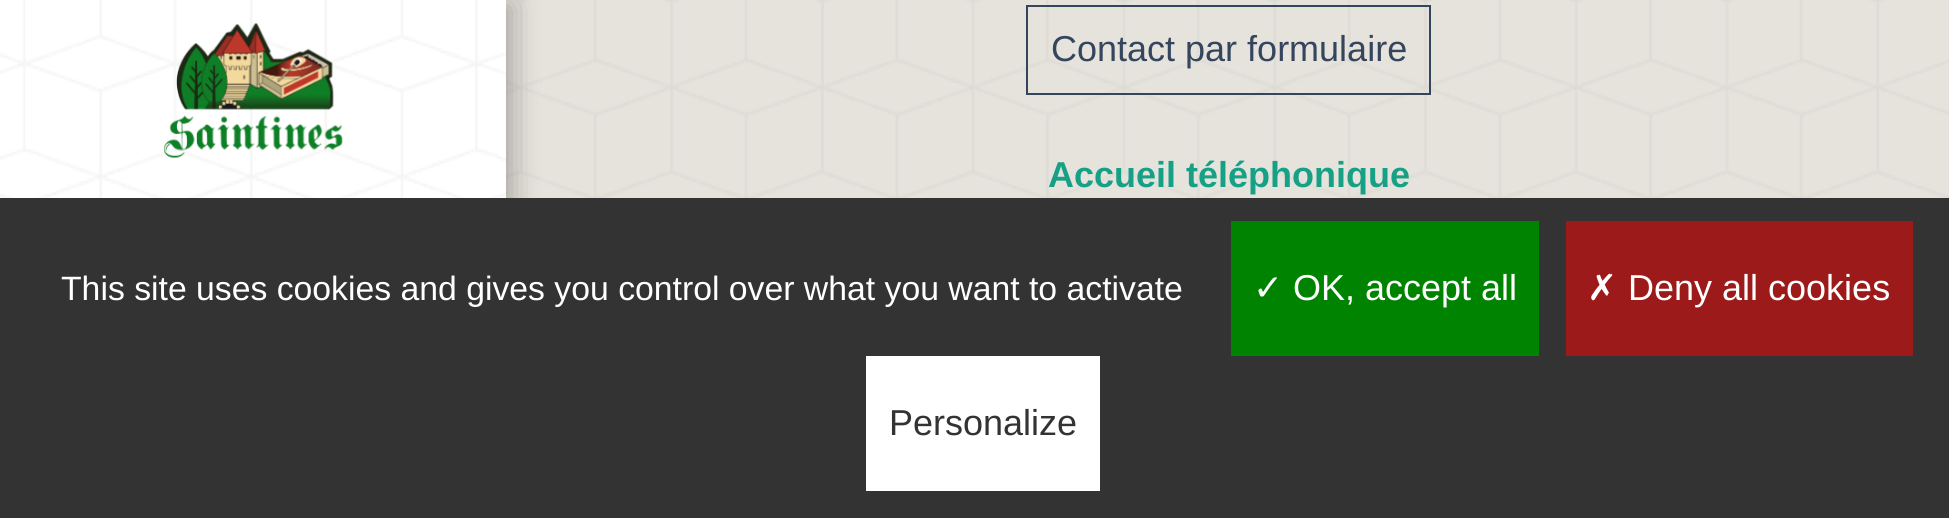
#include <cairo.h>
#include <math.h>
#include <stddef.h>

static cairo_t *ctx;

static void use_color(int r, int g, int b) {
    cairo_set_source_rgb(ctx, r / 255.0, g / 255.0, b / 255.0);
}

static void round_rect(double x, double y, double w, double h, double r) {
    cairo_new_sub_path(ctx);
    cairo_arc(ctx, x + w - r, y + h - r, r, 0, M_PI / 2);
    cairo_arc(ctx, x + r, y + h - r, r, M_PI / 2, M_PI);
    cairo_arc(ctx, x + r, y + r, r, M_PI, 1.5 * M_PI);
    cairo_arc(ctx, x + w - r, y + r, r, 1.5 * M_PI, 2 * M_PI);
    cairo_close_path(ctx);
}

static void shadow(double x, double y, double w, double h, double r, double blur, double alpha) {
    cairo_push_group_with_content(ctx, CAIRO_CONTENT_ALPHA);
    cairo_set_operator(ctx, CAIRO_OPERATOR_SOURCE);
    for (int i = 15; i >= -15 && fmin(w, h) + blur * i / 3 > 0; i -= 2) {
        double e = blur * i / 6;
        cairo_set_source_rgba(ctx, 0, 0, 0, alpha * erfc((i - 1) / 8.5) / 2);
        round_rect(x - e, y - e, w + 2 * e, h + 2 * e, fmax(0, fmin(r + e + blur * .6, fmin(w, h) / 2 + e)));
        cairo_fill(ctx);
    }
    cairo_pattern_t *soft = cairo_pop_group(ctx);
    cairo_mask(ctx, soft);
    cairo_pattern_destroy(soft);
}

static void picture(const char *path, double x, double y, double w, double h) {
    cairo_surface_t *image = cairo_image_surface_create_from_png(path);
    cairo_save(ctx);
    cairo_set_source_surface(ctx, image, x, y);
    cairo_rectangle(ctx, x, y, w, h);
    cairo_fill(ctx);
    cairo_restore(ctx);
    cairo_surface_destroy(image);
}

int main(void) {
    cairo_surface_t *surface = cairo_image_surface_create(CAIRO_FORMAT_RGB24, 1949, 518);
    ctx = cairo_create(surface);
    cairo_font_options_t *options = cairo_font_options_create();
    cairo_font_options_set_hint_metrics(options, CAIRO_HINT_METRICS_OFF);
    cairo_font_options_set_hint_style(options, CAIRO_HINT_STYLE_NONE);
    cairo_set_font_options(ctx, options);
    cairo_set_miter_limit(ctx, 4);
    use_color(255, 252, 244);
    cairo_paint(ctx);
    picture("img1.png", 506, 0, 1443, 198);
    cairo_set_source_rgba(ctx, 0, 0, 0, 0.1);
    cairo_rectangle(ctx, 506, 0, 1443, 198);
    cairo_fill(ctx);
    use_color(0, 0, 0);
    shadow(5, 5, 506, 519, 0, 14.5, 0.3);
    use_color(255, 255, 255);
    cairo_rectangle(ctx, 0, 0, 506, 198);
    cairo_fill(ctx);
    picture("img2.png", 0, 0, 506, 198);
    picture("img3.png", 164, 23, 179, 135);
    cairo_rectangle(ctx, 1027, 6, 403, 88);
    use_color(52, 69, 94);
    cairo_stroke(ctx);
    cairo_select_font_face(ctx, "Liberation Sans", CAIRO_FONT_SLANT_NORMAL, CAIRO_FONT_WEIGHT_NORMAL);
    cairo_set_font_size(ctx, 36);
    cairo_move_to(ctx, 1051, 61);
    cairo_show_text(ctx, "Contact par formulaire");
    cairo_select_font_face(ctx, "Liberation Sans", CAIRO_FONT_SLANT_NORMAL, CAIRO_FONT_WEIGHT_BOLD);
    use_color(22, 160, 133);
    cairo_move_to(ctx, 1048, 187);
    cairo_show_text(ctx, "Accueil téléphonique");
    use_color(51, 51, 51);
    cairo_rectangle(ctx, 0, 198, 1949, 320);
    cairo_fill(ctx);
    cairo_select_font_face(ctx, "Liberation Sans", CAIRO_FONT_SLANT_NORMAL, CAIRO_FONT_WEIGHT_NORMAL);
    cairo_set_font_size(ctx, 33.75);
    use_color(255, 255, 255);
    cairo_move_to(ctx, 61, 300);
    cairo_show_text(ctx, "This site uses cookies and gives you control over what you want to activate");
    use_color(0, 131, 0);
    cairo_rectangle(ctx, 1231, 221, 308, 135);
    cairo_fill(ctx);
    cairo_select_font_face(ctx, "DejaVu Sans", CAIRO_FONT_SLANT_NORMAL, CAIRO_FONT_WEIGHT_NORMAL);
    cairo_set_font_size(ctx, 36);
    use_color(255, 255, 255);
    cairo_move_to(ctx, 1253, 300);
    cairo_show_text(ctx, "✓");
    cairo_select_font_face(ctx, "Liberation Sans", CAIRO_FONT_SLANT_NORMAL, CAIRO_FONT_WEIGHT_NORMAL);
    cairo_move_to(ctx, 1293, 300);
    cairo_show_text(ctx, "OK, accept all");
    use_color(156, 26, 26);
    cairo_rectangle(ctx, 1566, 221, 347, 135);
    cairo_fill(ctx);
    cairo_select_font_face(ctx, "DejaVu Sans", CAIRO_FONT_SLANT_NORMAL, CAIRO_FONT_WEIGHT_NORMAL);
    use_color(255, 255, 255);
    cairo_move_to(ctx, 1587, 300);
    cairo_show_text(ctx, "✗");
    cairo_select_font_face(ctx, "Liberation Sans", CAIRO_FONT_SLANT_NORMAL, CAIRO_FONT_WEIGHT_NORMAL);
    cairo_move_to(ctx, 1628, 300);
    cairo_show_text(ctx, "Deny all cookies");
    cairo_rectangle(ctx, 866, 356, 234, 135);
    cairo_fill(ctx);
    use_color(51, 51, 51);
    cairo_move_to(ctx, 889, 435);
    cairo_show_text(ctx, "Personalize");
    cairo_surface_write_to_png(surface, "result.png");
    cairo_font_options_destroy(options);
    cairo_destroy(ctx);
    cairo_surface_destroy(surface);
    return 0;
}
